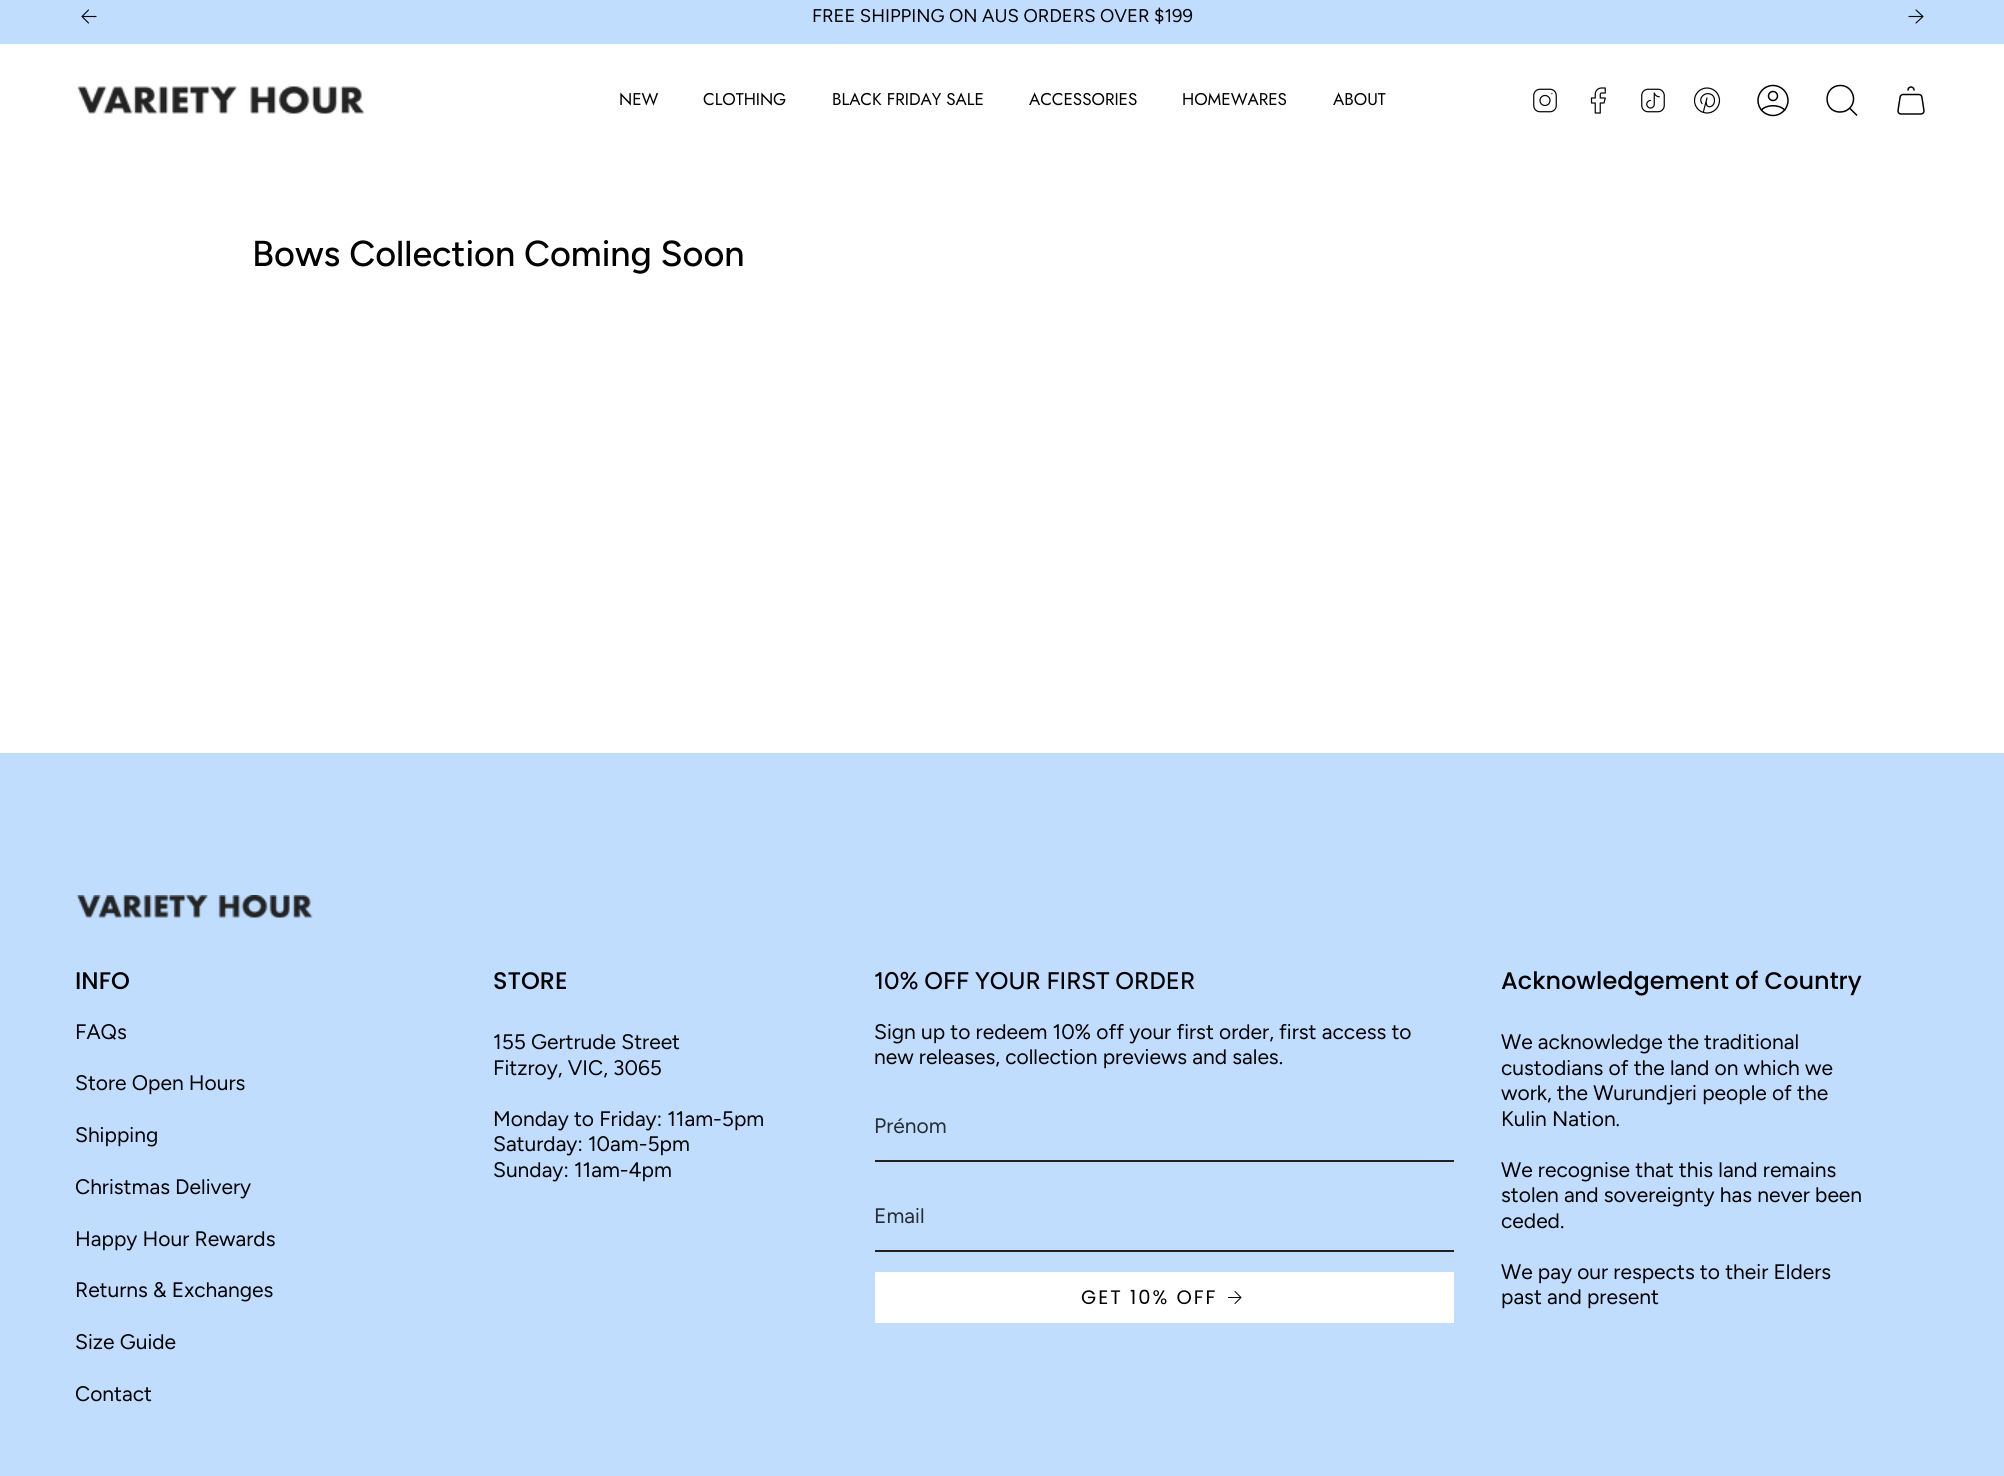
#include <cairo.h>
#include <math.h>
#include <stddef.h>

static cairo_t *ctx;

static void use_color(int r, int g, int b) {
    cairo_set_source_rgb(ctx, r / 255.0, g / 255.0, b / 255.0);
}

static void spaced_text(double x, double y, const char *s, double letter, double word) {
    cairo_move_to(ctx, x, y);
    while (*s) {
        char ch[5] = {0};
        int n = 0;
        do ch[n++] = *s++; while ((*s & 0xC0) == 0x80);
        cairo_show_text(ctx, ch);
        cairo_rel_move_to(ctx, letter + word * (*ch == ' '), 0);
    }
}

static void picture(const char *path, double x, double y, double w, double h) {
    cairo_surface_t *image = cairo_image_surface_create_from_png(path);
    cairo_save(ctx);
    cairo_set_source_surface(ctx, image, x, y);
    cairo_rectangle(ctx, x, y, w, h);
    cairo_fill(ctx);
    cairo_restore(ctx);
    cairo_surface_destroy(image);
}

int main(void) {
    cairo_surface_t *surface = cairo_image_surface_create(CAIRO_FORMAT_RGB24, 2004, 1476);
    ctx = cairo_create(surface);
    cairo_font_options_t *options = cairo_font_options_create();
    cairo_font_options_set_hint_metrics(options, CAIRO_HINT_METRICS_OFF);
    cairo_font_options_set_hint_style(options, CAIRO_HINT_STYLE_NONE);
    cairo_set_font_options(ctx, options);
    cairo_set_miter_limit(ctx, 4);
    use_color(255, 255, 255);
    cairo_paint(ctx);
    use_color(192, 221, 254);
    cairo_rectangle(ctx, 0, 0, 2004, 44);
    cairo_fill(ctx);
    cairo_new_path(ctx);
    cairo_move_to(ctx, 96, 16.5);
    cairo_line_to(ctx, 82, 16.5);
    cairo_move_to(ctx, 82, 16.5);
    cairo_line_to(ctx, 88.5, 10);
    cairo_move_to(ctx, 82, 16.5);
    cairo_line_to(ctx, 88.5, 23);
    use_color(0, 0, 0);
    cairo_set_line_width(ctx, 1.1);
    cairo_set_line_cap(ctx, CAIRO_LINE_CAP_ROUND);
    cairo_set_line_join(ctx, CAIRO_LINE_JOIN_ROUND);
    cairo_stroke(ctx);
    cairo_select_font_face(ctx, "Figtree", CAIRO_FONT_SLANT_NORMAL, CAIRO_FONT_WEIGHT_NORMAL);
    cairo_set_font_size(ctx, 18.4);
    cairo_move_to(ctx, 812, 22);
    cairo_show_text(ctx, "FREE SHIPPING ON AUS ORDERS OVER $199");
    cairo_new_path(ctx);
    cairo_move_to(ctx, 1909, 16.5);
    cairo_line_to(ctx, 1923, 16.5);
    cairo_move_to(ctx, 1923, 16.5);
    cairo_line_to(ctx, 1916, 10);
    cairo_move_to(ctx, 1923, 16.5);
    cairo_line_to(ctx, 1916, 23);
    cairo_stroke(ctx);
    picture("img1.png", 77, 86, 288, 28);
    cairo_select_font_face(ctx, "Jost", CAIRO_FONT_SLANT_NORMAL, CAIRO_FONT_WEIGHT_NORMAL);
    cairo_set_font_size(ctx, 17);
    cairo_move_to(ctx, 619, 105);
    cairo_show_text(ctx, "NEW");
    cairo_move_to(ctx, 703, 105);
    cairo_show_text(ctx, "CLOTHING");
    cairo_move_to(ctx, 832, 105);
    cairo_show_text(ctx, "BLACK FRIDAY SALE");
    cairo_move_to(ctx, 1029, 105);
    cairo_show_text(ctx, "ACCESSORIES");
    cairo_move_to(ctx, 1182, 105);
    cairo_show_text(ctx, "HOMEWARES");
    cairo_move_to(ctx, 1333, 105);
    cairo_show_text(ctx, "ABOUT");
    picture("img2.png", 1533, 88, 24, 25);
    picture("img3.png", 1590, 87, 16, 27);
    picture("img4.png", 1641, 88, 24, 25);
    picture("img5.png", 1693, 87, 28, 27);
    picture("img6.png", 1757, 84, 32, 33);
    cairo_new_path(ctx);
    cairo_move_to(ctx, 1840.5, 85.5);
    cairo_curve_to(ctx, 1853, 85.5, 1858.5, 102, 1848, 109.5);
    cairo_curve_to(ctx, 1845.5, 111.5, 1842.5, 112, 1839.5, 112);
    cairo_curve_to(ctx, 1822.5, 111.5, 1823, 85.5, 1840.5, 85.5);
    cairo_close_path(ctx);
    cairo_move_to(ctx, 1849.5, 108);
    cairo_line_to(ctx, 1857, 115.5);
    cairo_set_line_width(ctx, 1.5);
    cairo_set_line_cap(ctx, CAIRO_LINE_CAP_BUTT);
    cairo_set_line_join(ctx, CAIRO_LINE_JOIN_MITER);
    cairo_stroke(ctx);
    picture("img7.png", 1897, 86, 28, 29);
    cairo_select_font_face(ctx, "Figtree Medium", CAIRO_FONT_SLANT_NORMAL, CAIRO_FONT_WEIGHT_NORMAL);
    cairo_set_font_size(ctx, 36);
    cairo_move_to(ctx, 252, 266);
    cairo_show_text(ctx, "Bows Collection Coming Soon");
    use_color(192, 221, 254);
    cairo_rectangle(ctx, 0, 753, 2004, 723);
    cairo_fill(ctx);
    picture("img8.png", 76, 895, 237, 23);
    cairo_select_font_face(ctx, "Poppins Medium", CAIRO_FONT_SLANT_NORMAL, CAIRO_FONT_WEIGHT_NORMAL);
    cairo_set_font_size(ctx, 24);
    use_color(0, 0, 0);
    cairo_move_to(ctx, 75, 989);
    cairo_show_text(ctx, "INFO");
    cairo_select_font_face(ctx, "Figtree", CAIRO_FONT_SLANT_NORMAL, CAIRO_FONT_WEIGHT_NORMAL);
    cairo_set_font_size(ctx, 21);
    cairo_move_to(ctx, 75, 1039);
    cairo_show_text(ctx, "FAQs");
    cairo_move_to(ctx, 75, 1090);
    cairo_show_text(ctx, "Store Open Hours");
    cairo_move_to(ctx, 75, 1142);
    cairo_show_text(ctx, "Shipping");
    cairo_move_to(ctx, 75, 1194);
    cairo_show_text(ctx, "Christmas Delivery");
    cairo_move_to(ctx, 75, 1246);
    cairo_show_text(ctx, "Happy Hour Rewards");
    cairo_move_to(ctx, 75, 1297);
    cairo_show_text(ctx, "Returns & Exchanges");
    cairo_move_to(ctx, 75, 1349);
    cairo_show_text(ctx, "Size Guide");
    cairo_move_to(ctx, 75, 1401);
    cairo_show_text(ctx, "Contact");
    cairo_select_font_face(ctx, "Poppins Medium", CAIRO_FONT_SLANT_NORMAL, CAIRO_FONT_WEIGHT_NORMAL);
    cairo_set_font_size(ctx, 24);
    cairo_move_to(ctx, 493, 989);
    cairo_show_text(ctx, "STORE");
    cairo_select_font_face(ctx, "Figtree", CAIRO_FONT_SLANT_NORMAL, CAIRO_FONT_WEIGHT_NORMAL);
    cairo_set_font_size(ctx, 21);
    cairo_move_to(ctx, 493, 1049);
    cairo_show_text(ctx, "155 Gertrude Street");
    cairo_move_to(ctx, 493, 1075);
    cairo_show_text(ctx, "Fitzroy, VIC, 3065");
    cairo_move_to(ctx, 493, 1126);
    cairo_show_text(ctx, "Monday to Friday: 11am-5pm");
    cairo_move_to(ctx, 493, 1151);
    cairo_show_text(ctx, "Saturday: 10am-5pm");
    cairo_move_to(ctx, 493, 1177);
    cairo_show_text(ctx, "Sunday: 11am-4pm");
    cairo_select_font_face(ctx, "Figtree Medium", CAIRO_FONT_SLANT_NORMAL, CAIRO_FONT_WEIGHT_NORMAL);
    cairo_set_font_size(ctx, 24);
    cairo_move_to(ctx, 874, 989);
    cairo_show_text(ctx, "10% OFF YOUR FIRST ORDER");
    cairo_select_font_face(ctx, "Figtree", CAIRO_FONT_SLANT_NORMAL, CAIRO_FONT_WEIGHT_NORMAL);
    cairo_set_font_size(ctx, 21);
    cairo_move_to(ctx, 874, 1039);
    cairo_show_text(ctx, "Sign up to redeem 10% off your first order, first access to");
    cairo_move_to(ctx, 874, 1064);
    cairo_show_text(ctx, "new releases, collection previews and sales.");
    use_color(33, 33, 33);
    cairo_rectangle(ctx, 875, 1160, 579, 2);
    cairo_fill(ctx);
    use_color(38, 44, 51);
    cairo_move_to(ctx, 874, 1133);
    cairo_show_text(ctx, "Prénom");
    use_color(33, 33, 33);
    cairo_rectangle(ctx, 875, 1250, 579, 2);
    cairo_fill(ctx);
    use_color(38, 44, 51);
    cairo_move_to(ctx, 874, 1223);
    cairo_show_text(ctx, "Email");
    use_color(255, 255, 255);
    cairo_rectangle(ctx, 875, 1272, 579, 51);
    cairo_fill(ctx);
    cairo_select_font_face(ctx, "Poppins", CAIRO_FONT_SLANT_NORMAL, CAIRO_FONT_WEIGHT_NORMAL);
    cairo_set_font_size(ctx, 19.5);
    use_color(0, 0, 0);
    spaced_text(1081, 1304, "GET 10% OFF", 2, 0);
    cairo_new_path(ctx);
    cairo_move_to(ctx, 1228.5, 1297.5);
    cairo_line_to(ctx, 1241, 1297.5);
    cairo_move_to(ctx, 1241, 1297.5);
    cairo_line_to(ctx, 1235, 1291.5);
    cairo_move_to(ctx, 1241, 1297.5);
    cairo_line_to(ctx, 1235, 1303.5);
    cairo_set_line_width(ctx, 1);
    cairo_set_line_cap(ctx, CAIRO_LINE_CAP_ROUND);
    cairo_set_line_join(ctx, CAIRO_LINE_JOIN_ROUND);
    cairo_stroke(ctx);
    cairo_select_font_face(ctx, "Poppins Medium", CAIRO_FONT_SLANT_NORMAL, CAIRO_FONT_WEIGHT_NORMAL);
    cairo_set_font_size(ctx, 24);
    cairo_move_to(ctx, 1501, 989);
    cairo_show_text(ctx, "Acknowledgement of Country");
    cairo_select_font_face(ctx, "Figtree", CAIRO_FONT_SLANT_NORMAL, CAIRO_FONT_WEIGHT_NORMAL);
    cairo_set_font_size(ctx, 21);
    cairo_move_to(ctx, 1501, 1049);
    cairo_show_text(ctx, "We acknowledge the traditional");
    cairo_move_to(ctx, 1501, 1075);
    cairo_show_text(ctx, "custodians of the land on which we");
    cairo_move_to(ctx, 1501, 1100);
    cairo_show_text(ctx, "work, the Wurundjeri people of the");
    cairo_move_to(ctx, 1501, 1126);
    cairo_show_text(ctx, "Kulin Nation.");
    cairo_move_to(ctx, 1501, 1177);
    cairo_show_text(ctx, "We recognise that this land remains");
    cairo_move_to(ctx, 1501, 1202);
    cairo_show_text(ctx, "stolen and sovereignty has never been");
    cairo_move_to(ctx, 1501, 1228);
    cairo_show_text(ctx, "ceded.");
    cairo_move_to(ctx, 1501, 1279);
    cairo_show_text(ctx, "We pay our respects to their Elders");
    cairo_move_to(ctx, 1501, 1304);
    cairo_show_text(ctx, "past and present");
    cairo_surface_write_to_png(surface, "result.png");
    cairo_font_options_destroy(options);
    cairo_destroy(ctx);
    cairo_surface_destroy(surface);
    return 0;
}
